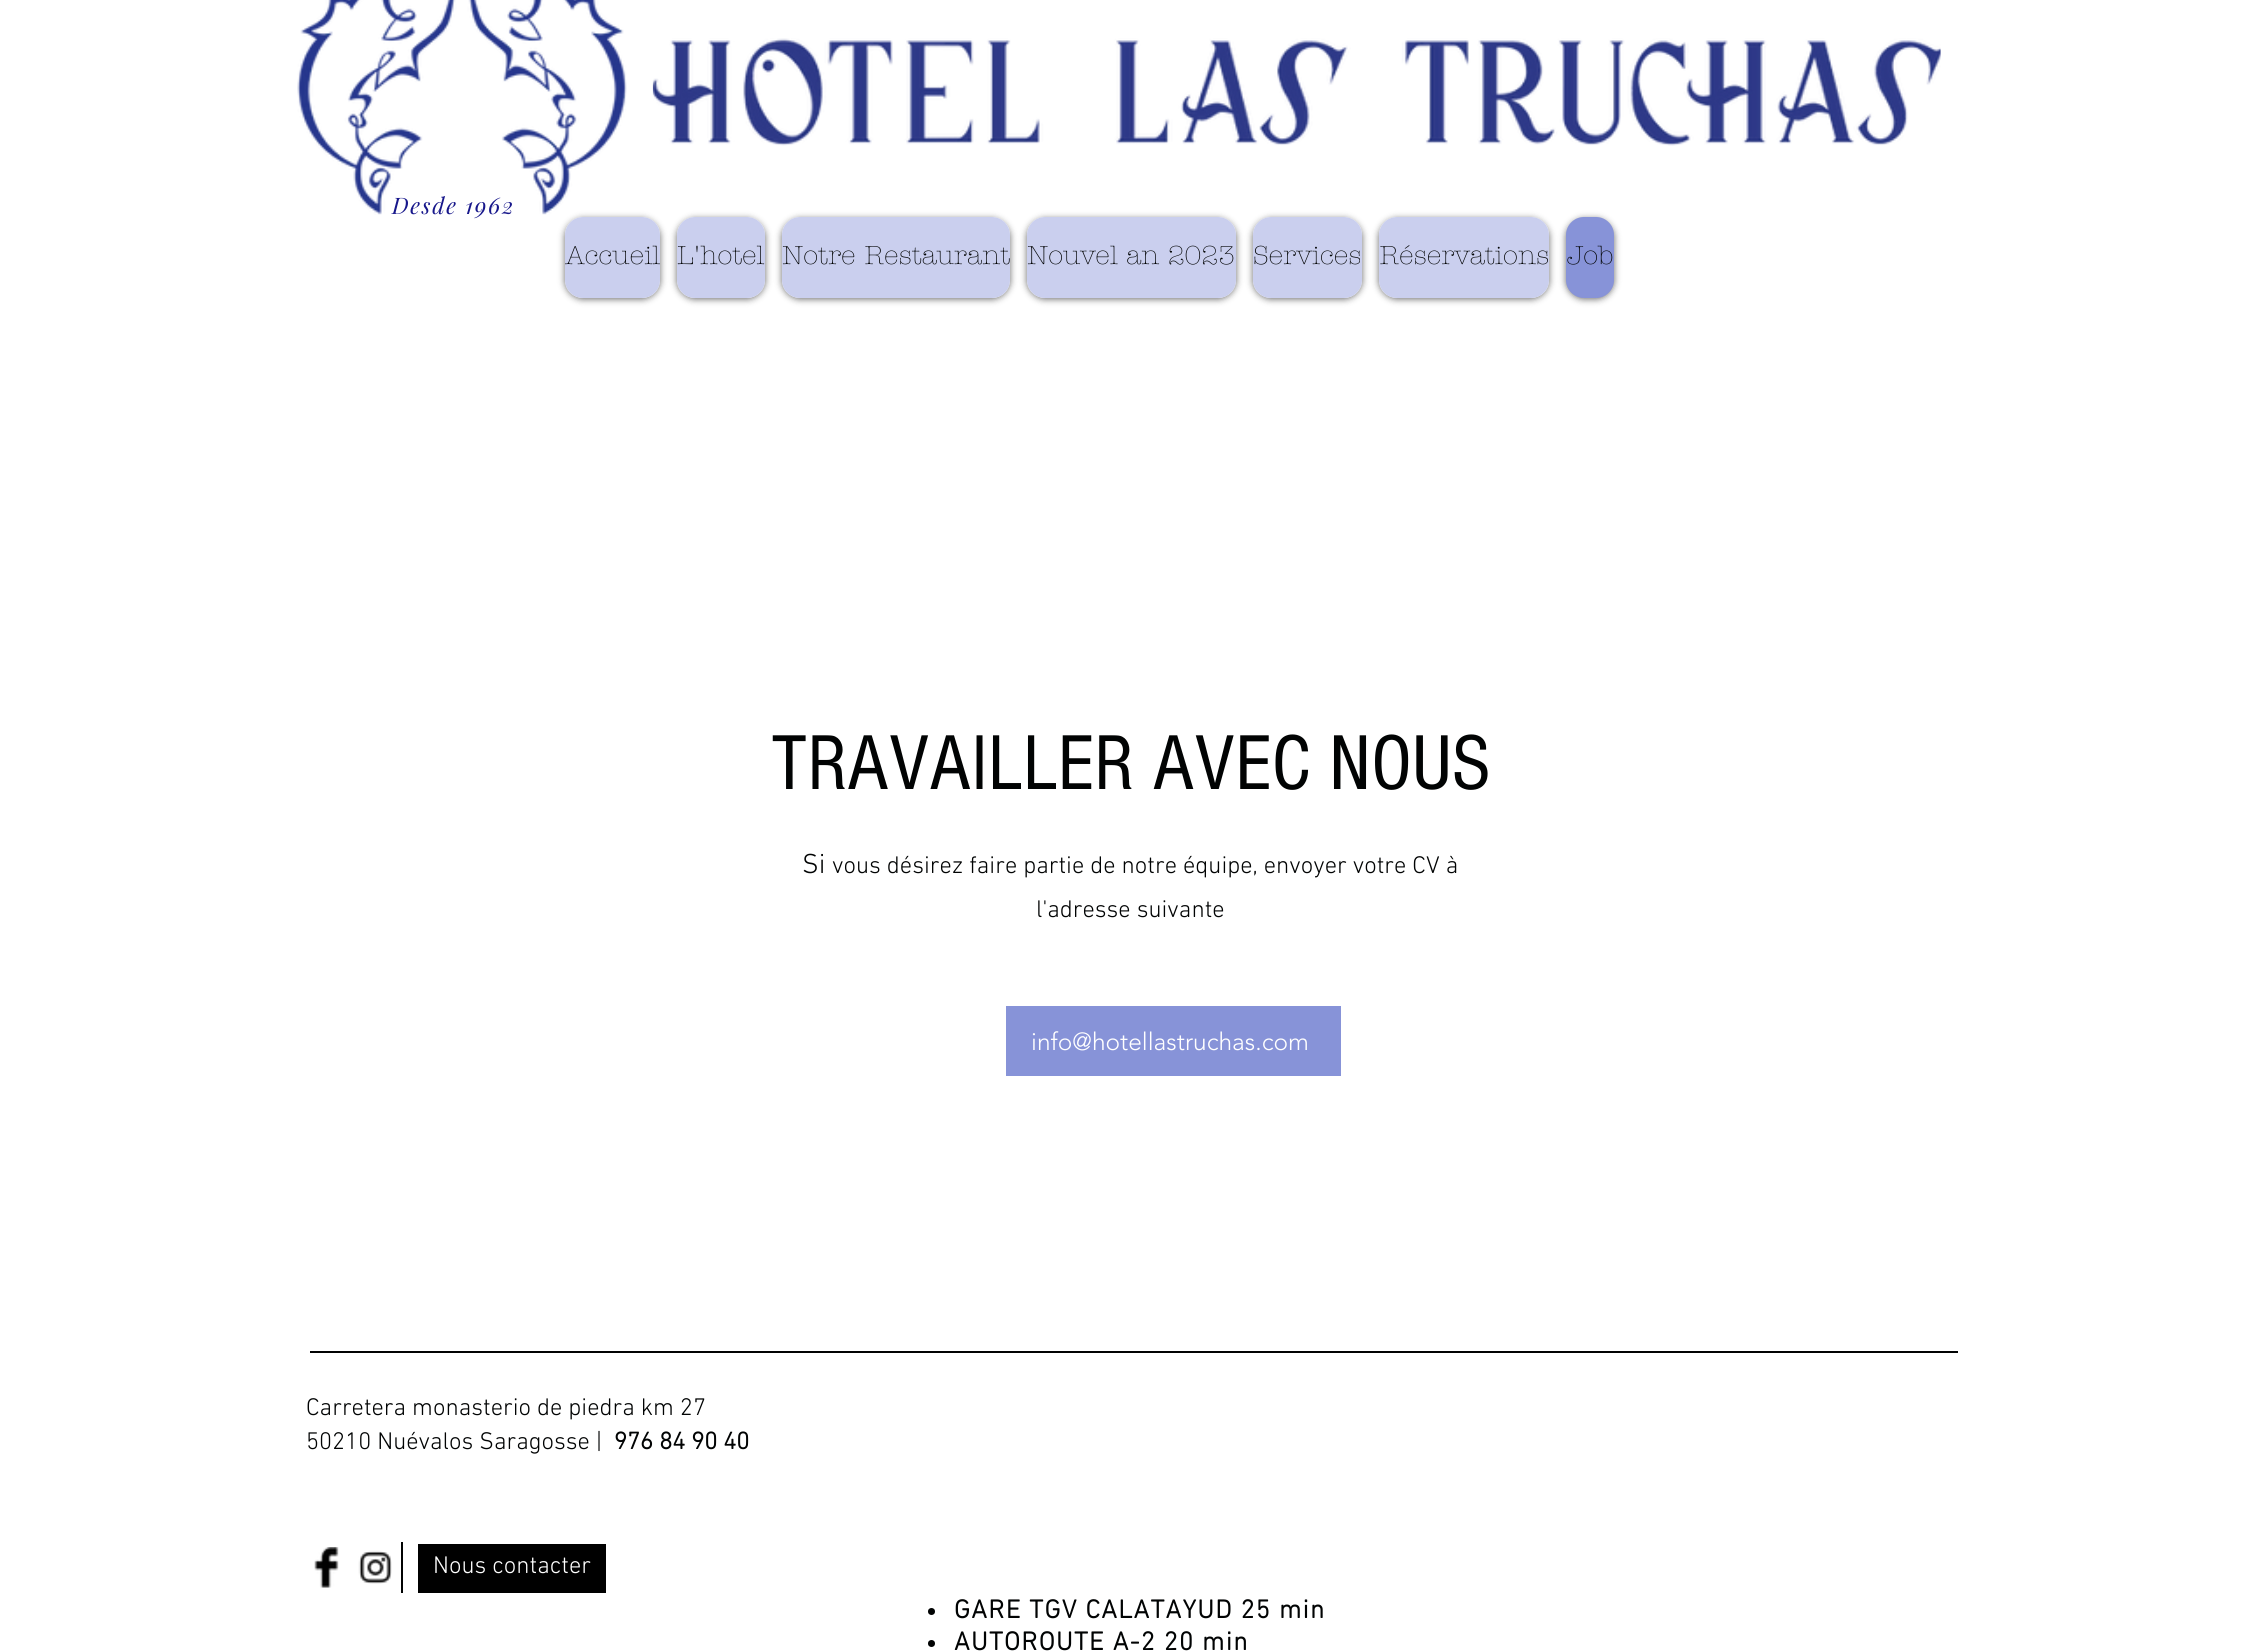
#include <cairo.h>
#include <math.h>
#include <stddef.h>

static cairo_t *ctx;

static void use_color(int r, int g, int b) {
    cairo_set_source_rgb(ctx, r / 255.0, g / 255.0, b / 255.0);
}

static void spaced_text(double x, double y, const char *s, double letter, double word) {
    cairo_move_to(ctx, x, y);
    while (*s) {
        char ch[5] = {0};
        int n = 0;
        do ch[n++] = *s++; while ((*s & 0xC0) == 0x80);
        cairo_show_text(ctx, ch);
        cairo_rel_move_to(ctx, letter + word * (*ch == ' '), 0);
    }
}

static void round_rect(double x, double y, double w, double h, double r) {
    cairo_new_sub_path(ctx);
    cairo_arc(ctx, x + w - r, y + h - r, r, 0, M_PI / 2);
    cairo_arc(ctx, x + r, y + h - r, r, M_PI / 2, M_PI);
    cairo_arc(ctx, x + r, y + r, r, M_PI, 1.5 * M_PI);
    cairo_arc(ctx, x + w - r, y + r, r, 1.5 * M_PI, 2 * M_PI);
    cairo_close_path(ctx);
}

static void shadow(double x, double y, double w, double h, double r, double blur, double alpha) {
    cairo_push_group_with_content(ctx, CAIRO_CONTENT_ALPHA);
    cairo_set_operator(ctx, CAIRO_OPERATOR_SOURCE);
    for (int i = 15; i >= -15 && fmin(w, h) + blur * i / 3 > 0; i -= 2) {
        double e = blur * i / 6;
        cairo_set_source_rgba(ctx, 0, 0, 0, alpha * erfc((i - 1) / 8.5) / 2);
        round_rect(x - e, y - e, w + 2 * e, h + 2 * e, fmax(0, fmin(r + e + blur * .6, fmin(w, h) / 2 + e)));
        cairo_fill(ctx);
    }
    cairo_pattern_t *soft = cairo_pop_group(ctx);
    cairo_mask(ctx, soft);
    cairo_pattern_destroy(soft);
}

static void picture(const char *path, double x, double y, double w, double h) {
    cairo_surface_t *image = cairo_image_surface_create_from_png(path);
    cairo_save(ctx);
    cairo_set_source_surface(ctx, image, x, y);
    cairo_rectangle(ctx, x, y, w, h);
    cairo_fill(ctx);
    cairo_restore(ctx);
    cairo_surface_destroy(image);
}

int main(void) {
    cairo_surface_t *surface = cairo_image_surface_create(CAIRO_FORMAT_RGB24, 2260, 1652);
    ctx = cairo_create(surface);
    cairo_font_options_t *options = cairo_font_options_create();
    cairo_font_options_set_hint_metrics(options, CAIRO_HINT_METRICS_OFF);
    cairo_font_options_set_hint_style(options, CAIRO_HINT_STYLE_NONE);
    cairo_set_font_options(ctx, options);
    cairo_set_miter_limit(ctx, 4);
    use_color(255, 255, 255);
    cairo_paint(ctx);
    picture("img1.png", 297, 0, 330, 215);
    picture("img2.png", 652, 38, 1289, 108);
    cairo_select_font_face(ctx, "Playfair Display", CAIRO_FONT_SLANT_ITALIC, CAIRO_FONT_WEIGHT_NORMAL);
    cairo_set_font_size(ctx, 22.75);
    use_color(23, 23, 139);
    spaced_text(392, 214, "Desde 1962", 1.75, 0);
    cairo_save(ctx);
    cairo_set_fill_rule(ctx, CAIRO_FILL_RULE_EVEN_ODD);
    cairo_new_path(ctx);
    cairo_move_to(ctx, 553, 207);
    cairo_line_to(ctx, 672, 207);
    cairo_line_to(ctx, 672, 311);
    cairo_line_to(ctx, 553, 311);
    cairo_close_path(ctx);
    cairo_move_to(ctx, 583, 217);
    cairo_line_to(ctx, 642, 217);
    cairo_curve_to(ctx, 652, 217, 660, 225, 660, 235);
    cairo_line_to(ctx, 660, 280);
    cairo_curve_to(ctx, 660, 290, 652, 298, 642, 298);
    cairo_line_to(ctx, 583, 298);
    cairo_curve_to(ctx, 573, 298, 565, 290, 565, 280);
    cairo_line_to(ctx, 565, 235);
    cairo_curve_to(ctx, 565, 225, 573, 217, 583, 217);
    cairo_close_path(ctx);
    cairo_clip(ctx);
    use_color(0, 0, 0);
    shadow(565, 219, 95, 80, 18, 3.5, 0.6);
    cairo_restore(ctx);
    cairo_set_source_rgba(ctx, 0.529, 0.576, 0.847, 0.44);
    round_rect(565, 217, 95, 81, 18);
    cairo_fill(ctx);
    cairo_select_font_face(ctx, "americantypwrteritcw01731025 Light", CAIRO_FONT_SLANT_NORMAL, CAIRO_FONT_WEIGHT_NORMAL);
    cairo_set_font_size(ctx, 26.25);
    use_color(1, 3, 3);
    cairo_move_to(ctx, 565, 264);
    cairo_show_text(ctx, "Accueil");
    cairo_save(ctx);
    cairo_set_fill_rule(ctx, CAIRO_FILL_RULE_EVEN_ODD);
    cairo_new_path(ctx);
    cairo_move_to(ctx, 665, 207);
    cairo_line_to(ctx, 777, 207);
    cairo_line_to(ctx, 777, 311);
    cairo_line_to(ctx, 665, 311);
    cairo_close_path(ctx);
    cairo_move_to(ctx, 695, 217);
    cairo_line_to(ctx, 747, 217);
    cairo_curve_to(ctx, 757, 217, 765, 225, 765, 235);
    cairo_line_to(ctx, 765, 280);
    cairo_curve_to(ctx, 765, 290, 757, 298, 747, 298);
    cairo_line_to(ctx, 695, 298);
    cairo_curve_to(ctx, 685, 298, 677, 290, 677, 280);
    cairo_line_to(ctx, 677, 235);
    cairo_curve_to(ctx, 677, 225, 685, 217, 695, 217);
    cairo_close_path(ctx);
    cairo_clip(ctx);
    use_color(0, 0, 0);
    shadow(677, 219, 88, 80, 18, 3.5, 0.6);
    cairo_restore(ctx);
    cairo_set_source_rgba(ctx, 0.529, 0.576, 0.847, 0.44);
    round_rect(677, 217, 88, 81, 18);
    cairo_fill(ctx);
    use_color(1, 3, 3);
    cairo_move_to(ctx, 677, 264);
    cairo_show_text(ctx, "L'hotel");
    cairo_save(ctx);
    cairo_set_fill_rule(ctx, CAIRO_FILL_RULE_EVEN_ODD);
    cairo_new_path(ctx);
    cairo_move_to(ctx, 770, 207);
    cairo_line_to(ctx, 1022, 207);
    cairo_line_to(ctx, 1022, 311);
    cairo_line_to(ctx, 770, 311);
    cairo_close_path(ctx);
    cairo_move_to(ctx, 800, 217);
    cairo_line_to(ctx, 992, 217);
    cairo_curve_to(ctx, 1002, 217, 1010, 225, 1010, 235);
    cairo_line_to(ctx, 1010, 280);
    cairo_curve_to(ctx, 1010, 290, 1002, 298, 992, 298);
    cairo_line_to(ctx, 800, 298);
    cairo_curve_to(ctx, 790, 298, 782, 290, 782, 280);
    cairo_line_to(ctx, 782, 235);
    cairo_curve_to(ctx, 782, 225, 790, 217, 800, 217);
    cairo_close_path(ctx);
    cairo_clip(ctx);
    use_color(0, 0, 0);
    shadow(782, 219, 228, 80, 18, 3.5, 0.6);
    cairo_restore(ctx);
    cairo_set_source_rgba(ctx, 0.529, 0.576, 0.847, 0.44);
    round_rect(782, 217, 228, 81, 18);
    cairo_fill(ctx);
    use_color(1, 3, 3);
    cairo_move_to(ctx, 782, 264);
    cairo_show_text(ctx, "Notre Restaurant");
    cairo_save(ctx);
    cairo_set_fill_rule(ctx, CAIRO_FILL_RULE_EVEN_ODD);
    cairo_new_path(ctx);
    cairo_move_to(ctx, 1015, 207);
    cairo_line_to(ctx, 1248, 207);
    cairo_line_to(ctx, 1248, 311);
    cairo_line_to(ctx, 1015, 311);
    cairo_close_path(ctx);
    cairo_move_to(ctx, 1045, 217);
    cairo_line_to(ctx, 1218, 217);
    cairo_curve_to(ctx, 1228, 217, 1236, 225, 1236, 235);
    cairo_line_to(ctx, 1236, 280);
    cairo_curve_to(ctx, 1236, 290, 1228, 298, 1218, 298);
    cairo_line_to(ctx, 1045, 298);
    cairo_curve_to(ctx, 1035, 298, 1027, 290, 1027, 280);
    cairo_line_to(ctx, 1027, 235);
    cairo_curve_to(ctx, 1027, 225, 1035, 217, 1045, 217);
    cairo_close_path(ctx);
    cairo_clip(ctx);
    use_color(0, 0, 0);
    shadow(1027, 219, 209, 80, 18, 3.5, 0.6);
    cairo_restore(ctx);
    cairo_set_source_rgba(ctx, 0.529, 0.576, 0.847, 0.44);
    round_rect(1027, 217, 209, 81, 18);
    cairo_fill(ctx);
    use_color(1, 3, 3);
    cairo_move_to(ctx, 1027, 264);
    cairo_show_text(ctx, "Nouvel an 2023");
    cairo_save(ctx);
    cairo_set_fill_rule(ctx, CAIRO_FILL_RULE_EVEN_ODD);
    cairo_new_path(ctx);
    cairo_move_to(ctx, 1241, 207);
    cairo_line_to(ctx, 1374, 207);
    cairo_line_to(ctx, 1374, 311);
    cairo_line_to(ctx, 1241, 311);
    cairo_close_path(ctx);
    cairo_move_to(ctx, 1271, 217);
    cairo_line_to(ctx, 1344, 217);
    cairo_curve_to(ctx, 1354, 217, 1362, 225, 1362, 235);
    cairo_line_to(ctx, 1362, 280);
    cairo_curve_to(ctx, 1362, 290, 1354, 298, 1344, 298);
    cairo_line_to(ctx, 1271, 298);
    cairo_curve_to(ctx, 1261, 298, 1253, 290, 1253, 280);
    cairo_line_to(ctx, 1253, 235);
    cairo_curve_to(ctx, 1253, 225, 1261, 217, 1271, 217);
    cairo_close_path(ctx);
    cairo_clip(ctx);
    use_color(0, 0, 0);
    shadow(1253, 219, 109, 80, 18, 3.5, 0.6);
    cairo_restore(ctx);
    cairo_set_source_rgba(ctx, 0.529, 0.576, 0.847, 0.44);
    round_rect(1253, 217, 109, 81, 18);
    cairo_fill(ctx);
    use_color(1, 3, 3);
    cairo_move_to(ctx, 1253, 264);
    cairo_show_text(ctx, "Services");
    cairo_save(ctx);
    cairo_set_fill_rule(ctx, CAIRO_FILL_RULE_EVEN_ODD);
    cairo_new_path(ctx);
    cairo_move_to(ctx, 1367, 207);
    cairo_line_to(ctx, 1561, 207);
    cairo_line_to(ctx, 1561, 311);
    cairo_line_to(ctx, 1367, 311);
    cairo_close_path(ctx);
    cairo_move_to(ctx, 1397, 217);
    cairo_line_to(ctx, 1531, 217);
    cairo_curve_to(ctx, 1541, 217, 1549, 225, 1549, 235);
    cairo_line_to(ctx, 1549, 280);
    cairo_curve_to(ctx, 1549, 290, 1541, 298, 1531, 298);
    cairo_line_to(ctx, 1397, 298);
    cairo_curve_to(ctx, 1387, 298, 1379, 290, 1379, 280);
    cairo_line_to(ctx, 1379, 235);
    cairo_curve_to(ctx, 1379, 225, 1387, 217, 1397, 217);
    cairo_close_path(ctx);
    cairo_clip(ctx);
    use_color(0, 0, 0);
    shadow(1379, 219, 170, 80, 18, 3.5, 0.6);
    cairo_restore(ctx);
    cairo_set_source_rgba(ctx, 0.529, 0.576, 0.847, 0.44);
    round_rect(1379, 217, 170, 81, 18);
    cairo_fill(ctx);
    use_color(1, 3, 3);
    cairo_move_to(ctx, 1379, 264);
    cairo_show_text(ctx, "Réservations");
    use_color(0, 0, 0);
    shadow(1566, 219, 48, 80, 18, 3.5, 0.6);
    use_color(135, 147, 216);
    round_rect(1566, 217, 48, 81, 18);
    cairo_fill(ctx);
    use_color(1, 3, 3);
    cairo_move_to(ctx, 1567, 264);
    cairo_show_text(ctx, "Job");
    cairo_select_font_face(ctx, "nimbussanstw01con", CAIRO_FONT_SLANT_NORMAL, CAIRO_FONT_WEIGHT_NORMAL);
    cairo_set_font_size(ctx, 80.5);
    cairo_move_to(ctx, 771, 789);
    cairo_show_text(ctx, "TRAVAILLER AVEC NOUS");
    cairo_select_font_face(ctx, "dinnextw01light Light", CAIRO_FONT_SLANT_NORMAL, CAIRO_FONT_WEIGHT_NORMAL);
    cairo_set_font_size(ctx, 28);
    cairo_move_to(ctx, 802, 873);
    cairo_show_text(ctx, "Si");
    cairo_set_font_size(ctx, 24.5);
    cairo_move_to(ctx, 832, 873);
    cairo_show_text(ctx, "vous désirez faire partie de notre équipe, envoyer votre CV à");
    cairo_move_to(ctx, 1036, 917);
    cairo_show_text(ctx, "l'adresse suivante");
    use_color(135, 147, 216);
    cairo_rectangle(ctx, 1006, 1006, 335, 70);
    cairo_fill(ctx);
    cairo_select_font_face(ctx, "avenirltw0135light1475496 Light", CAIRO_FONT_SLANT_NORMAL, CAIRO_FONT_WEIGHT_NORMAL);
    use_color(255, 255, 255);
    cairo_move_to(ctx, 1031, 1050);
    cairo_show_text(ctx, "info@hotellastruchas.com");
    use_color(1, 3, 3);
    cairo_rectangle(ctx, 310, 1351, 1648, 2);
    cairo_fill(ctx);
    cairo_select_font_face(ctx, "dinnextw01light Light", CAIRO_FONT_SLANT_NORMAL, CAIRO_FONT_WEIGHT_NORMAL);
    cairo_move_to(ctx, 306, 1415);
    cairo_show_text(ctx, "Carretera monasterio de piedra km 27");
    cairo_move_to(ctx, 306, 1449);
    cairo_show_text(ctx, "50210 Nuévalos Saragosse |");
    cairo_select_font_face(ctx, "dinnextw01light", CAIRO_FONT_SLANT_NORMAL, CAIRO_FONT_WEIGHT_BOLD);
    cairo_move_to(ctx, 614, 1449);
    cairo_show_text(ctx, "976 84 90 40");
    picture("img3.png", 314, 1547, 25, 41);
    picture("img4.png", 358, 1550, 34, 34);
    cairo_rectangle(ctx, 401, 1542, 2, 51);
    cairo_fill(ctx);
    use_color(0, 0, 0);
    cairo_rectangle(ctx, 418, 1544, 188, 49);
    cairo_fill(ctx);
    cairo_select_font_face(ctx, "dinnextw01light Light", CAIRO_FONT_SLANT_NORMAL, CAIRO_FONT_WEIGHT_NORMAL);
    use_color(255, 255, 255);
    cairo_move_to(ctx, 433, 1573);
    cairo_show_text(ctx, "Nous contacter");
    use_color(1, 3, 3);
    cairo_new_path(ctx);
    cairo_arc(ctx, 931.5, 1611.5, 3.5, 0, 2 * M_PI);
    cairo_fill(ctx);
    cairo_select_font_face(ctx, "dinnextw01light", CAIRO_FONT_SLANT_NORMAL, CAIRO_FONT_WEIGHT_BOLD);
    cairo_set_font_size(ctx, 26.25);
    spaced_text(954, 1618, "GARE TGV CALATAYUD 25 min", 1.3, 0);
    cairo_new_path(ctx);
    cairo_arc(ctx, 931.5, 1643.5, 3.5, 0, 2 * M_PI);
    cairo_fill(ctx);
    spaced_text(954, 1650, "AUTOROUTE A-2 20 min", 1.3, 0);
    cairo_surface_write_to_png(surface, "result.png");
    cairo_font_options_destroy(options);
    cairo_destroy(ctx);
    cairo_surface_destroy(surface);
    return 0;
}
